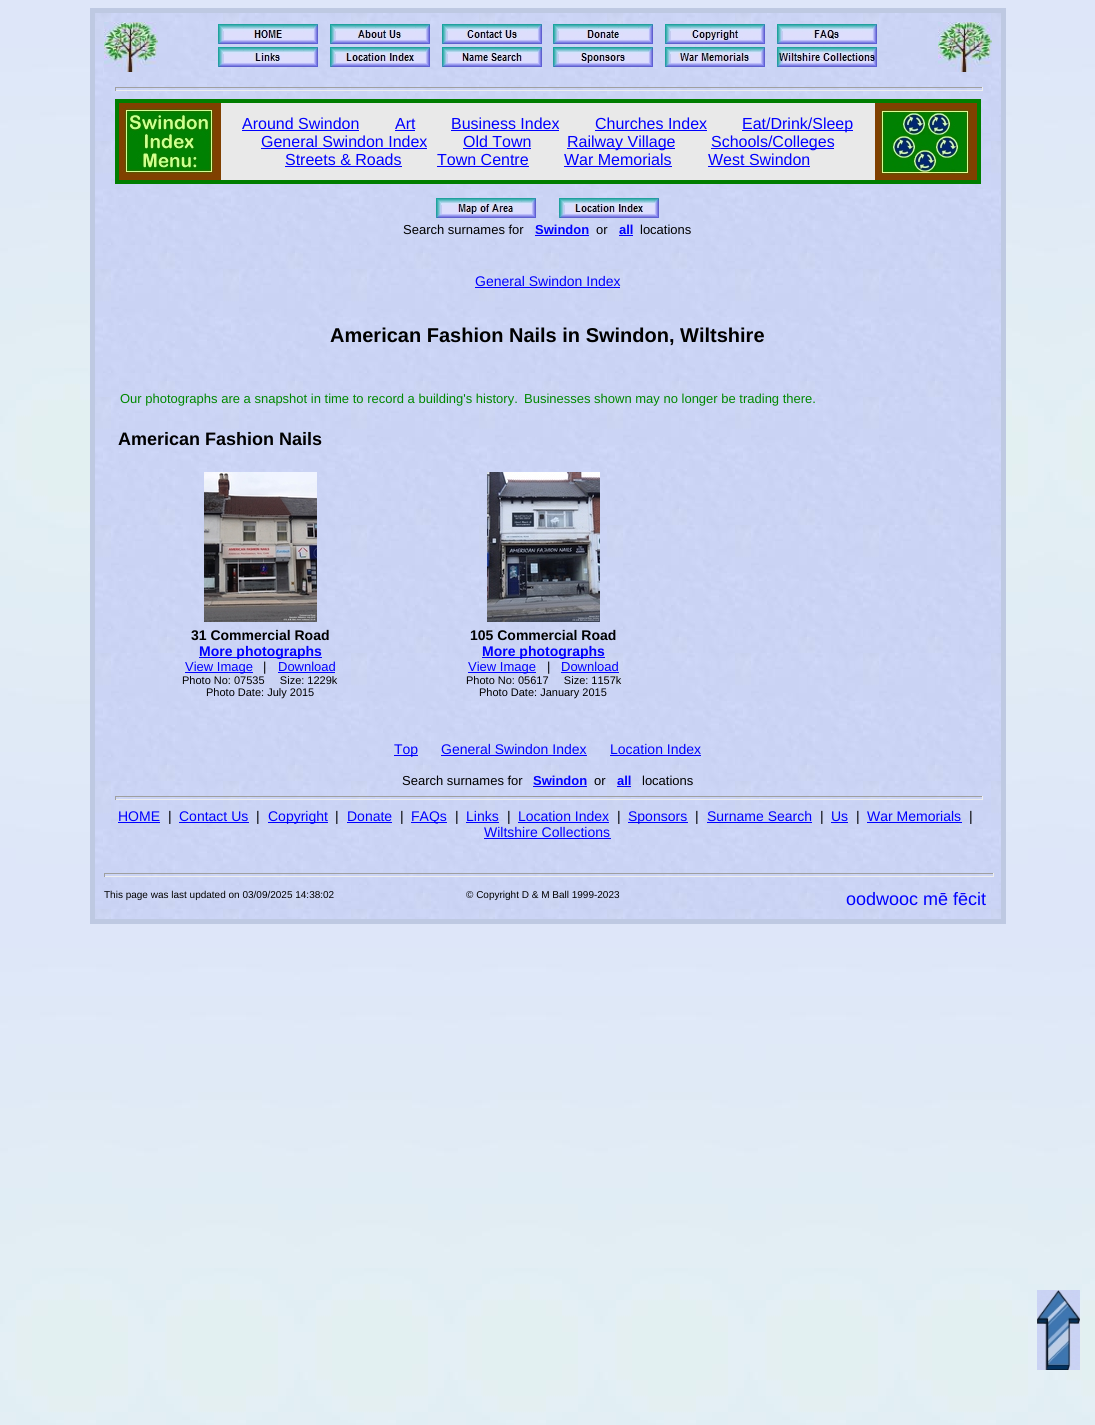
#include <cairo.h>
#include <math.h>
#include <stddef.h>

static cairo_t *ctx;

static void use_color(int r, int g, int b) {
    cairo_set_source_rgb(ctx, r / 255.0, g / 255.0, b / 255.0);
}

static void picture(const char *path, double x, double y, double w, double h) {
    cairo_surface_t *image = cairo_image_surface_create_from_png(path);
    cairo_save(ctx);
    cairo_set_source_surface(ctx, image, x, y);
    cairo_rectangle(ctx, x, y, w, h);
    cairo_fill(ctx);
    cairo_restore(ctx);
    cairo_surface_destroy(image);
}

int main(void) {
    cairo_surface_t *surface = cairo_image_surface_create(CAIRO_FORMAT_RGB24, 1095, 1425);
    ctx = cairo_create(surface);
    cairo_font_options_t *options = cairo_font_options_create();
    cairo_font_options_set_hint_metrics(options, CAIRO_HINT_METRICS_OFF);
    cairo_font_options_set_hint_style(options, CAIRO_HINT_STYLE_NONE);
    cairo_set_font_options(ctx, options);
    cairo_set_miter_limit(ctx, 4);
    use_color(255, 255, 255);
    cairo_paint(ctx);
    picture("img1.png", 0, 0, 1095, 1425);
    picture("img2.png", 95, 13, 906, 906);
    cairo_rectangle(ctx, 92.5, 10.5, 911, 911);
    use_color(190, 201, 226);
    cairo_set_line_width(ctx, 5);
    cairo_stroke(ctx);
    picture("img3.png", 104, 22, 54, 50);
    picture("img4.png", 218, 24, 100, 20);
    picture("img5.png", 330, 24, 100, 20);
    picture("img6.png", 442, 24, 100, 20);
    picture("img7.png", 553, 24, 100, 20);
    picture("img8.png", 665, 24, 100, 20);
    picture("img9.png", 777, 24, 100, 20);
    picture("img10.png", 218, 47, 100, 20);
    picture("img11.png", 330, 47, 100, 20);
    picture("img12.png", 442, 47, 100, 20);
    picture("img13.png", 553, 47, 100, 20);
    picture("img14.png", 665, 47, 100, 20);
    picture("img15.png", 777, 47, 100, 20);
    picture("img3.png", 938, 22, 54, 50);
    use_color(159, 159, 159);
    cairo_rectangle(ctx, 115, 87, 868, 1);
    cairo_fill(ctx);
    use_color(238, 238, 238);
    cairo_rectangle(ctx, 982, 87, 1, 4);
    cairo_fill(ctx);
    cairo_rectangle(ctx, 115, 90, 868, 1);
    cairo_fill(ctx);
    use_color(159, 159, 159);
    cairo_rectangle(ctx, 115, 87, 1, 4);
    cairo_fill(ctx);
    use_color(233, 233, 233);
    cairo_rectangle(ctx, 221, 103, 654, 77);
    cairo_fill(ctx);
    use_color(0, 126, 0);
    cairo_rectangle(ctx, 115, 99, 866, 4);
    cairo_fill(ctx);
    cairo_rectangle(ctx, 977, 99, 4, 85);
    cairo_fill(ctx);
    cairo_rectangle(ctx, 115, 180, 866, 4);
    cairo_fill(ctx);
    cairo_rectangle(ctx, 115, 99, 4, 85);
    cairo_fill(ctx);
    use_color(128, 64, 0);
    cairo_rectangle(ctx, 119, 103, 102, 77);
    cairo_fill(ctx);
    picture("img16.png", 122, 107, 93, 68);
    cairo_select_font_face(ctx, "Liberation Sans", CAIRO_FONT_SLANT_NORMAL, CAIRO_FONT_WEIGHT_NORMAL);
    cairo_set_font_size(ctx, 16);
    use_color(0, 0, 255);
    cairo_move_to(ctx, 242, 129);
    cairo_show_text(ctx, "Around Swindon");
    cairo_rectangle(ctx, 242, 130, 117, 1);
    cairo_fill(ctx);
    cairo_move_to(ctx, 395, 129);
    cairo_show_text(ctx, "Art");
    cairo_rectangle(ctx, 395, 130, 20, 1);
    cairo_fill(ctx);
    cairo_move_to(ctx, 451, 129);
    cairo_show_text(ctx, "Business Index");
    cairo_rectangle(ctx, 451, 130, 108, 1);
    cairo_fill(ctx);
    cairo_move_to(ctx, 595, 129);
    cairo_show_text(ctx, "Churches Index");
    cairo_rectangle(ctx, 595, 130, 112, 1);
    cairo_fill(ctx);
    cairo_rectangle(ctx, 742, 130, 111, 1);
    cairo_fill(ctx);
    cairo_move_to(ctx, 742, 129);
    cairo_show_text(ctx, "Eat/Drink/Sleep");
    cairo_move_to(ctx, 261, 147);
    cairo_show_text(ctx, "General Swindon Index");
    cairo_rectangle(ctx, 261, 148, 166, 1);
    cairo_fill(ctx);
    cairo_move_to(ctx, 463, 147);
    cairo_show_text(ctx, "Old Town");
    cairo_rectangle(ctx, 463, 148, 68, 1);
    cairo_fill(ctx);
    cairo_rectangle(ctx, 567, 148, 108, 1);
    cairo_fill(ctx);
    cairo_move_to(ctx, 567, 147);
    cairo_show_text(ctx, "Railway Village");
    cairo_rectangle(ctx, 711, 148, 123, 1);
    cairo_fill(ctx);
    cairo_move_to(ctx, 711, 147);
    cairo_show_text(ctx, "Schools/Colleges");
    cairo_move_to(ctx, 285, 165);
    cairo_show_text(ctx, "Streets & Roads");
    cairo_rectangle(ctx, 285, 166, 117, 1);
    cairo_fill(ctx);
    cairo_move_to(ctx, 437, 165);
    cairo_show_text(ctx, "Town Centre");
    cairo_rectangle(ctx, 437, 166, 92, 1);
    cairo_fill(ctx);
    cairo_move_to(ctx, 564, 165);
    cairo_show_text(ctx, "War Memorials");
    cairo_rectangle(ctx, 564, 166, 108, 1);
    cairo_fill(ctx);
    cairo_move_to(ctx, 708, 165);
    cairo_show_text(ctx, "West Swindon");
    cairo_rectangle(ctx, 708, 166, 102, 1);
    cairo_fill(ctx);
    use_color(128, 64, 0);
    cairo_rectangle(ctx, 875, 103, 102, 77);
    cairo_fill(ctx);
    picture("img17.png", 879, 108, 92, 67);
    picture("img18.png", 436, 198, 100, 20);
    picture("img11.png", 559, 198, 100, 20);
    cairo_set_font_size(ctx, 13);
    use_color(0, 0, 0);
    cairo_move_to(ctx, 403, 234);
    cairo_show_text(ctx, "Search surnames for");
    cairo_select_font_face(ctx, "Liberation Sans", CAIRO_FONT_SLANT_NORMAL, CAIRO_FONT_WEIGHT_BOLD);
    use_color(0, 0, 255);
    cairo_move_to(ctx, 535, 234);
    cairo_show_text(ctx, "Swindon");
    cairo_rectangle(ctx, 535, 235, 54, 1);
    cairo_fill(ctx);
    cairo_select_font_face(ctx, "Liberation Sans", CAIRO_FONT_SLANT_NORMAL, CAIRO_FONT_WEIGHT_NORMAL);
    use_color(0, 0, 0);
    cairo_move_to(ctx, 596, 234);
    cairo_show_text(ctx, "or");
    cairo_select_font_face(ctx, "Liberation Sans", CAIRO_FONT_SLANT_NORMAL, CAIRO_FONT_WEIGHT_BOLD);
    use_color(0, 0, 255);
    cairo_move_to(ctx, 619, 234);
    cairo_show_text(ctx, "all");
    cairo_rectangle(ctx, 619, 235, 14, 1);
    cairo_fill(ctx);
    cairo_select_font_face(ctx, "Liberation Sans", CAIRO_FONT_SLANT_NORMAL, CAIRO_FONT_WEIGHT_NORMAL);
    use_color(0, 0, 0);
    cairo_move_to(ctx, 640, 234);
    cairo_show_text(ctx, "locations");
    cairo_set_font_size(ctx, 14);
    use_color(0, 0, 255);
    cairo_move_to(ctx, 475, 286);
    cairo_show_text(ctx, "General Swindon Index");
    cairo_rectangle(ctx, 475, 287, 145, 1);
    cairo_fill(ctx);
    cairo_select_font_face(ctx, "Liberation Sans", CAIRO_FONT_SLANT_NORMAL, CAIRO_FONT_WEIGHT_BOLD);
    cairo_set_font_size(ctx, 20);
    use_color(0, 0, 0);
    cairo_move_to(ctx, 330, 342);
    cairo_show_text(ctx, "American Fashion Nails in Swindon, Wiltshire");
    cairo_select_font_face(ctx, "Liberation Sans", CAIRO_FONT_SLANT_NORMAL, CAIRO_FONT_WEIGHT_NORMAL);
    cairo_set_font_size(ctx, 13);
    use_color(0, 136, 0);
    cairo_move_to(ctx, 120, 403);
    cairo_show_text(ctx, "Our photographs are a snapshot in time to record a building's history.");
    cairo_move_to(ctx, 524, 403);
    cairo_show_text(ctx, "Businesses shown may no longer be trading there.");
    cairo_select_font_face(ctx, "Liberation Sans", CAIRO_FONT_SLANT_NORMAL, CAIRO_FONT_WEIGHT_BOLD);
    cairo_set_font_size(ctx, 18);
    use_color(0, 0, 0);
    cairo_move_to(ctx, 118, 445);
    cairo_show_text(ctx, "American Fashion Nails");
    picture("img19.png", 204, 472, 113, 150);
    cairo_set_font_size(ctx, 14);
    cairo_move_to(ctx, 191, 640);
    cairo_show_text(ctx, "31 Commercial Road");
    use_color(0, 0, 255);
    cairo_rectangle(ctx, 199, 657, 123, 1);
    cairo_fill(ctx);
    cairo_move_to(ctx, 199, 656);
    cairo_show_text(ctx, "More photographs");
    cairo_rectangle(ctx, 185, 672, 68, 1);
    cairo_fill(ctx);
    cairo_select_font_face(ctx, "Liberation Sans", CAIRO_FONT_SLANT_NORMAL, CAIRO_FONT_WEIGHT_NORMAL);
    cairo_set_font_size(ctx, 13);
    cairo_move_to(ctx, 185, 671);
    cairo_show_text(ctx, "View Image");
    use_color(0, 0, 0);
    cairo_move_to(ctx, 263, 671);
    cairo_show_text(ctx, "|");
    use_color(0, 0, 255);
    cairo_move_to(ctx, 278, 671);
    cairo_show_text(ctx, "Download");
    cairo_rectangle(ctx, 278, 672, 57, 1);
    cairo_fill(ctx);
    cairo_set_font_size(ctx, 11);
    use_color(0, 0, 0);
    cairo_move_to(ctx, 182, 684);
    cairo_show_text(ctx, "Photo No: 07535     Size: 1229k");
    cairo_move_to(ctx, 206, 696);
    cairo_show_text(ctx, "Photo Date: July 2015");
    picture("img20.png", 487, 472, 113, 150);
    cairo_select_font_face(ctx, "Liberation Sans", CAIRO_FONT_SLANT_NORMAL, CAIRO_FONT_WEIGHT_BOLD);
    cairo_set_font_size(ctx, 14);
    cairo_move_to(ctx, 470, 640);
    cairo_show_text(ctx, "105 Commercial Road");
    use_color(0, 0, 255);
    cairo_rectangle(ctx, 482, 657, 123, 1);
    cairo_fill(ctx);
    cairo_move_to(ctx, 482, 656);
    cairo_show_text(ctx, "More photographs");
    cairo_rectangle(ctx, 468, 672, 68, 1);
    cairo_fill(ctx);
    cairo_select_font_face(ctx, "Liberation Sans", CAIRO_FONT_SLANT_NORMAL, CAIRO_FONT_WEIGHT_NORMAL);
    cairo_set_font_size(ctx, 13);
    cairo_move_to(ctx, 468, 671);
    cairo_show_text(ctx, "View Image");
    use_color(0, 0, 0);
    cairo_move_to(ctx, 547, 671);
    cairo_show_text(ctx, "|");
    use_color(0, 0, 255);
    cairo_move_to(ctx, 561, 671);
    cairo_show_text(ctx, "Download");
    cairo_rectangle(ctx, 561, 672, 58, 1);
    cairo_fill(ctx);
    cairo_set_font_size(ctx, 11);
    use_color(0, 0, 0);
    cairo_move_to(ctx, 466, 684);
    cairo_show_text(ctx, "Photo No: 05617     Size: 1157k");
    cairo_move_to(ctx, 479, 696);
    cairo_show_text(ctx, "Photo Date: January 2015");
    use_color(0, 0, 255);
    cairo_rectangle(ctx, 394, 755, 24, 1);
    cairo_fill(ctx);
    cairo_set_font_size(ctx, 14);
    cairo_move_to(ctx, 394, 754);
    cairo_show_text(ctx, "Top");
    cairo_move_to(ctx, 441, 754);
    cairo_show_text(ctx, "General Swindon Index");
    cairo_rectangle(ctx, 441, 755, 146, 1);
    cairo_fill(ctx);
    cairo_move_to(ctx, 610, 754);
    cairo_show_text(ctx, "Location Index");
    cairo_rectangle(ctx, 610, 755, 91, 1);
    cairo_fill(ctx);
    cairo_set_font_size(ctx, 13);
    use_color(0, 0, 0);
    cairo_move_to(ctx, 402, 785);
    cairo_show_text(ctx, "Search surnames for");
    cairo_select_font_face(ctx, "Liberation Sans", CAIRO_FONT_SLANT_NORMAL, CAIRO_FONT_WEIGHT_BOLD);
    use_color(0, 0, 255);
    cairo_move_to(ctx, 533, 785);
    cairo_show_text(ctx, "Swindon");
    cairo_rectangle(ctx, 533, 786, 54, 1);
    cairo_fill(ctx);
    cairo_select_font_face(ctx, "Liberation Sans", CAIRO_FONT_SLANT_NORMAL, CAIRO_FONT_WEIGHT_NORMAL);
    use_color(0, 0, 0);
    cairo_move_to(ctx, 594, 785);
    cairo_show_text(ctx, "or");
    cairo_select_font_face(ctx, "Liberation Sans", CAIRO_FONT_SLANT_NORMAL, CAIRO_FONT_WEIGHT_BOLD);
    use_color(0, 0, 255);
    cairo_move_to(ctx, 617, 785);
    cairo_show_text(ctx, "all");
    cairo_rectangle(ctx, 617, 786, 14, 1);
    cairo_fill(ctx);
    cairo_select_font_face(ctx, "Liberation Sans", CAIRO_FONT_SLANT_NORMAL, CAIRO_FONT_WEIGHT_NORMAL);
    use_color(0, 0, 0);
    cairo_move_to(ctx, 642, 785);
    cairo_show_text(ctx, "locations");
    use_color(159, 159, 159);
    cairo_rectangle(ctx, 115, 796, 868, 1);
    cairo_fill(ctx);
    use_color(238, 238, 238);
    cairo_rectangle(ctx, 982, 796, 1, 4);
    cairo_fill(ctx);
    cairo_rectangle(ctx, 115, 799, 868, 1);
    cairo_fill(ctx);
    use_color(159, 159, 159);
    cairo_rectangle(ctx, 115, 796, 1, 4);
    cairo_fill(ctx);
    cairo_set_font_size(ctx, 14);
    use_color(0, 0, 255);
    cairo_move_to(ctx, 118, 821);
    cairo_show_text(ctx, "HOME");
    cairo_rectangle(ctx, 118, 822, 42, 1);
    cairo_fill(ctx);
    use_color(0, 0, 0);
    cairo_move_to(ctx, 168, 821);
    cairo_show_text(ctx, "|");
    use_color(0, 0, 255);
    cairo_move_to(ctx, 179, 821);
    cairo_show_text(ctx, "Contact Us");
    cairo_rectangle(ctx, 179, 822, 70, 1);
    cairo_fill(ctx);
    use_color(0, 0, 0);
    cairo_move_to(ctx, 256, 821);
    cairo_show_text(ctx, "|");
    use_color(0, 0, 255);
    cairo_rectangle(ctx, 268, 822, 60, 1);
    cairo_fill(ctx);
    cairo_move_to(ctx, 268, 821);
    cairo_show_text(ctx, "Copyright");
    use_color(0, 0, 0);
    cairo_move_to(ctx, 335, 821);
    cairo_show_text(ctx, "|");
    use_color(0, 0, 255);
    cairo_move_to(ctx, 347, 821);
    cairo_show_text(ctx, "Donate");
    cairo_rectangle(ctx, 347, 822, 45, 1);
    cairo_fill(ctx);
    use_color(0, 0, 0);
    cairo_move_to(ctx, 400, 821);
    cairo_show_text(ctx, "|");
    use_color(0, 0, 255);
    cairo_rectangle(ctx, 411, 822, 36, 1);
    cairo_fill(ctx);
    cairo_move_to(ctx, 411, 821);
    cairo_show_text(ctx, "FAQs");
    use_color(0, 0, 0);
    cairo_move_to(ctx, 455, 821);
    cairo_show_text(ctx, "|");
    use_color(0, 0, 255);
    cairo_move_to(ctx, 466, 821);
    cairo_show_text(ctx, "Links");
    cairo_rectangle(ctx, 466, 822, 33, 1);
    cairo_fill(ctx);
    use_color(0, 0, 0);
    cairo_move_to(ctx, 507, 821);
    cairo_show_text(ctx, "|");
    use_color(0, 0, 255);
    cairo_move_to(ctx, 518, 821);
    cairo_show_text(ctx, "Location Index");
    cairo_rectangle(ctx, 518, 822, 91, 1);
    cairo_fill(ctx);
    use_color(0, 0, 0);
    cairo_move_to(ctx, 617, 821);
    cairo_show_text(ctx, "|");
    use_color(0, 0, 255);
    cairo_rectangle(ctx, 628, 822, 60, 1);
    cairo_fill(ctx);
    cairo_move_to(ctx, 628, 821);
    cairo_show_text(ctx, "Sponsors");
    use_color(0, 0, 0);
    cairo_move_to(ctx, 695, 821);
    cairo_show_text(ctx, "|");
    use_color(0, 0, 255);
    cairo_move_to(ctx, 707, 821);
    cairo_show_text(ctx, "Surname Search");
    cairo_rectangle(ctx, 707, 822, 105, 1);
    cairo_fill(ctx);
    use_color(0, 0, 0);
    cairo_move_to(ctx, 820, 821);
    cairo_show_text(ctx, "|");
    use_color(0, 0, 255);
    cairo_move_to(ctx, 831, 821);
    cairo_show_text(ctx, "Us");
    cairo_rectangle(ctx, 831, 822, 17, 1);
    cairo_fill(ctx);
    use_color(0, 0, 0);
    cairo_move_to(ctx, 856, 821);
    cairo_show_text(ctx, "|");
    use_color(0, 0, 255);
    cairo_move_to(ctx, 867, 821);
    cairo_show_text(ctx, "War Memorials");
    cairo_rectangle(ctx, 867, 822, 95, 1);
    cairo_fill(ctx);
    use_color(0, 0, 0);
    cairo_move_to(ctx, 969, 821);
    cairo_show_text(ctx, "|");
    use_color(0, 0, 255);
    cairo_move_to(ctx, 484, 837);
    cairo_show_text(ctx, "Wiltshire Collections");
    cairo_rectangle(ctx, 484, 838, 127, 1);
    cairo_fill(ctx);
    use_color(159, 159, 159);
    cairo_rectangle(ctx, 104, 873, 890, 1);
    cairo_fill(ctx);
    use_color(238, 238, 238);
    cairo_rectangle(ctx, 993, 873, 1, 4);
    cairo_fill(ctx);
    cairo_rectangle(ctx, 104, 876, 890, 1);
    cairo_fill(ctx);
    use_color(159, 159, 159);
    cairo_rectangle(ctx, 104, 873, 1, 4);
    cairo_fill(ctx);
    cairo_set_font_size(ctx, 10);
    use_color(0, 0, 0);
    cairo_move_to(ctx, 104, 898);
    cairo_show_text(ctx, "This page was last updated on 03/09/2025 14:38:02");
    cairo_move_to(ctx, 466, 898);
    cairo_show_text(ctx, "© Copyright D & M Ball 1999-2023");
    cairo_set_font_size(ctx, 18);
    use_color(0, 0, 255);
    cairo_move_to(ctx, 846, 905);
    cairo_show_text(ctx, "oodwooc mē fēcit");
    picture("img21.png", 1037, 1290, 43, 80);
    cairo_surface_write_to_png(surface, "result.png");
    cairo_font_options_destroy(options);
    cairo_destroy(ctx);
    cairo_surface_destroy(surface);
    return 0;
}
